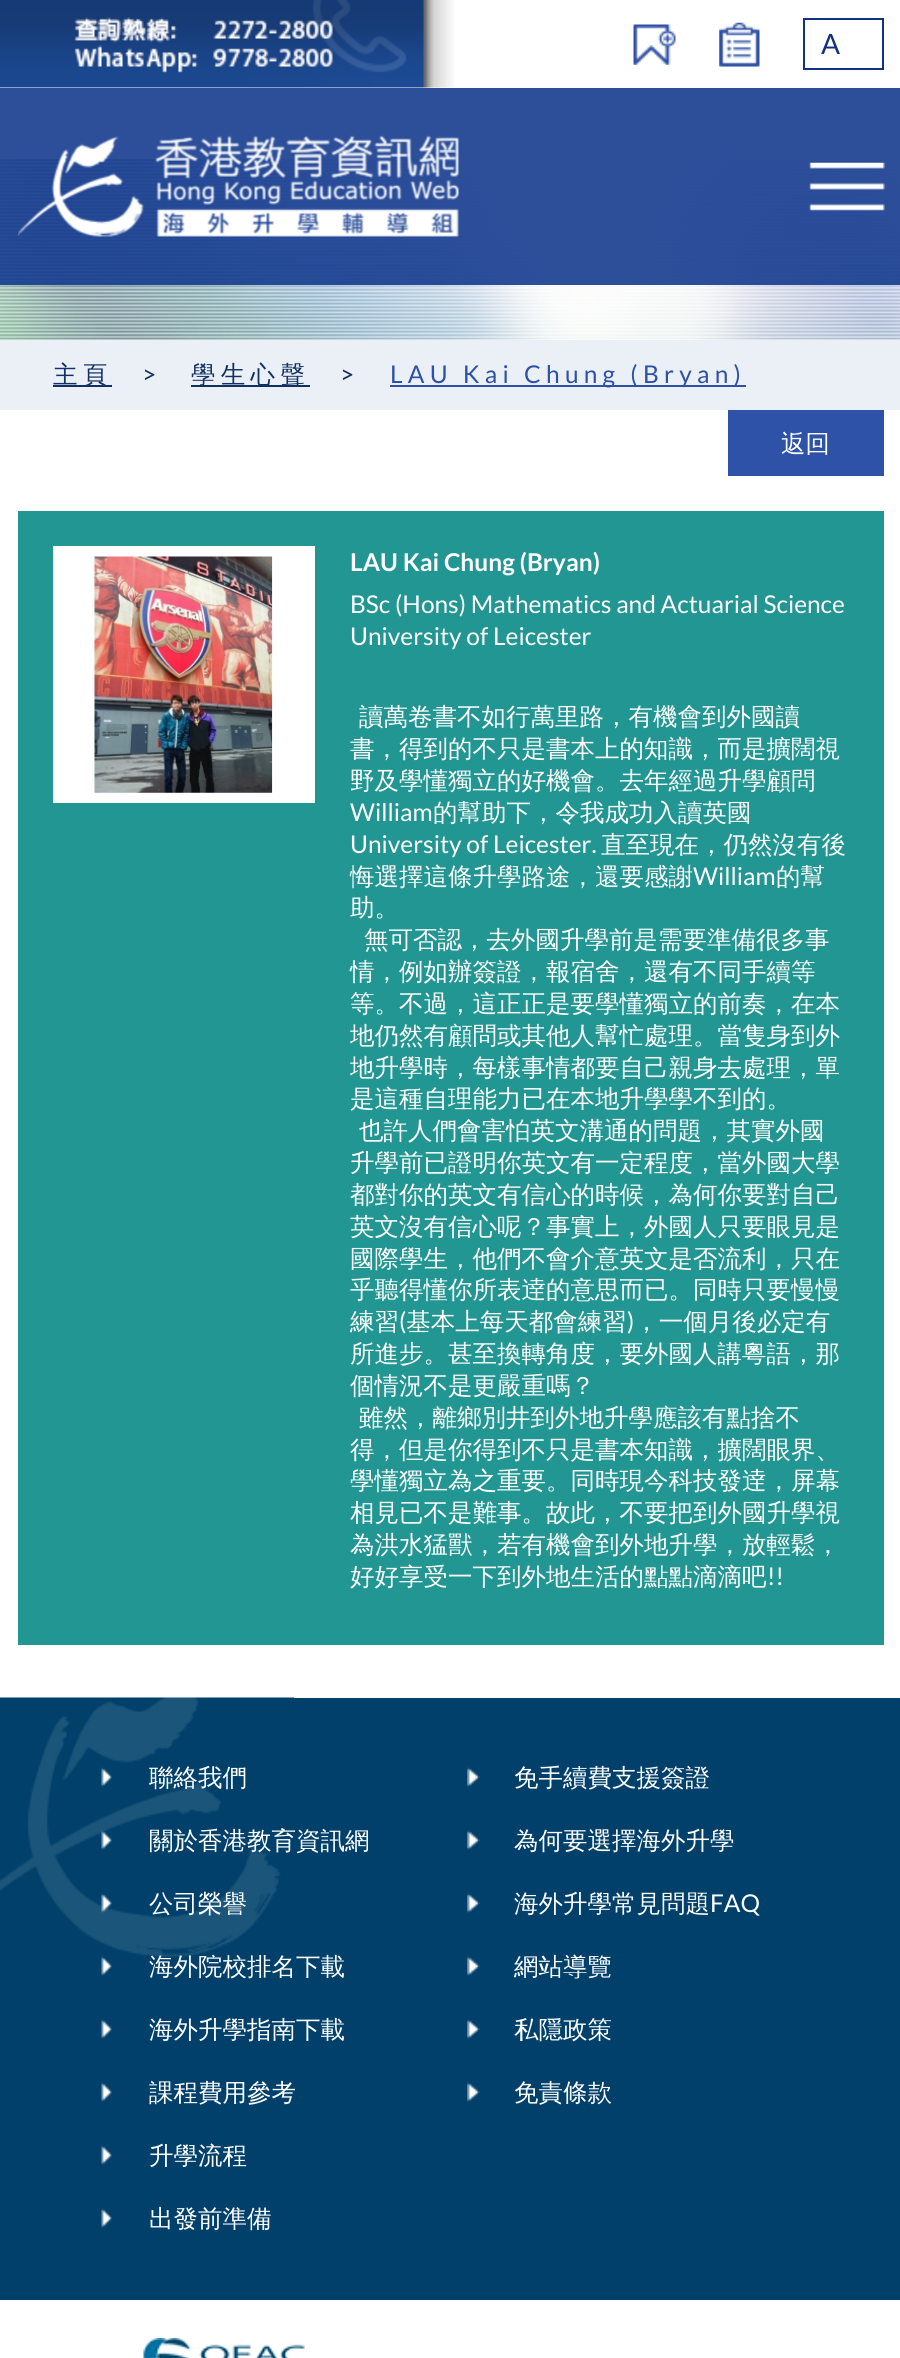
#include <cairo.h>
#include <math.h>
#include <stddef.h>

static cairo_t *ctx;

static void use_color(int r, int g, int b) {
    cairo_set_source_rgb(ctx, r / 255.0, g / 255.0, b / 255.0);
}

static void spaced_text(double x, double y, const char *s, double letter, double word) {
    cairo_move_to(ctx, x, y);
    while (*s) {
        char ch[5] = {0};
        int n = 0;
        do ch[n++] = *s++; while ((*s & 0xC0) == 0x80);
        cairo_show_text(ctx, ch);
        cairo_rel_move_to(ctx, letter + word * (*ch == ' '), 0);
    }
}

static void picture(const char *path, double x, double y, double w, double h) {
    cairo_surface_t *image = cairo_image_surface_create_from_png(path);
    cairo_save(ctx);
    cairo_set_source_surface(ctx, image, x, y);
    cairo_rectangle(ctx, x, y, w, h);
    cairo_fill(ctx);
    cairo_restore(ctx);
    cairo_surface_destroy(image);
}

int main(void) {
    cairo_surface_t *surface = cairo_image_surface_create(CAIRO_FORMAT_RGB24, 900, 2358);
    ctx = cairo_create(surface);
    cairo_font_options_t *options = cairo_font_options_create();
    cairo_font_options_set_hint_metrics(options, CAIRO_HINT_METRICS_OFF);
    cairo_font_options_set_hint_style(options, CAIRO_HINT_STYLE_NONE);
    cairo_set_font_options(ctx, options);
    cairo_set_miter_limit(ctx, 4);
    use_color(255, 255, 255);
    cairo_paint(ctx);
    picture("img1.png", 0, 0, 454, 88);
    picture("img2.png", 633, 24, 43, 41);
    picture("img3.png", 719, 22, 41, 45);
    cairo_rectangle(ctx, 804, 19, 79, 50);
    use_color(17, 50, 126);
    cairo_stroke(ctx);
    cairo_select_font_face(ctx, "Lato", CAIRO_FONT_SLANT_NORMAL, CAIRO_FONT_WEIGHT_NORMAL);
    cairo_set_font_size(ctx, 28);
    cairo_move_to(ctx, 821, 54);
    cairo_show_text(ctx, "A");
    picture("img6.png", 0, 159, 900, 181);
    cairo_set_source_rgba(ctx, 0.09, 0.235, 0.561, 0.9);
    cairo_rectangle(ctx, 0, 88, 900, 197);
    cairo_fill(ctx);
    picture("img4.png", 18, 135, 441, 102);
    picture("img5.png", 809, 162, 76, 49);
    use_color(235, 240, 247);
    cairo_rectangle(ctx, 0, 340, 900, 70);
    cairo_fill(ctx);
    use_color(18, 49, 99);
    cairo_rectangle(ctx, 53, 385, 59, 2);
    cairo_fill(ctx);
    cairo_select_font_face(ctx, "WenQuanYi Zen Hei Medium", CAIRO_FONT_SLANT_NORMAL, CAIRO_FONT_WEIGHT_NORMAL);
    cairo_set_font_size(ctx, 24.5);
    spaced_text(53, 383, "主頁", 5.25, 0);
    cairo_select_font_face(ctx, "Lato", CAIRO_FONT_SLANT_NORMAL, CAIRO_FONT_WEIGHT_NORMAL);
    spaced_text(142, 383, ">", 5.25, 0);
    cairo_rectangle(ctx, 191, 385, 119, 2);
    cairo_fill(ctx);
    cairo_select_font_face(ctx, "WenQuanYi Zen Hei Medium", CAIRO_FONT_SLANT_NORMAL, CAIRO_FONT_WEIGHT_NORMAL);
    spaced_text(191, 383, "學生心聲", 5.25, 0);
    cairo_select_font_face(ctx, "Lato", CAIRO_FONT_SLANT_NORMAL, CAIRO_FONT_WEIGHT_NORMAL);
    spaced_text(340, 383, ">", 5.25, 0);
    use_color(44, 81, 166);
    cairo_rectangle(ctx, 390, 385, 356, 2);
    cairo_fill(ctx);
    spaced_text(390, 383, "LAU Kai Chung (Bryan)", 5.25, 0);
    use_color(45, 82, 167);
    cairo_rectangle(ctx, 728, 410, 156, 66);
    cairo_fill(ctx);
    cairo_select_font_face(ctx, "WenQuanYi Zen Hei Medium", CAIRO_FONT_SLANT_NORMAL, CAIRO_FONT_WEIGHT_NORMAL);
    use_color(255, 255, 255);
    cairo_move_to(ctx, 781, 452);
    cairo_show_text(ctx, "返回");
    use_color(34, 150, 146);
    cairo_rectangle(ctx, 18, 511, 866, 1134);
    cairo_fill(ctx);
    cairo_rectangle(ctx, 58.5, 551.5, 251, 246);
    use_color(255, 255, 255);
    cairo_set_line_width(ctx, 11);
    cairo_stroke(ctx);
    picture("img7.png", 64, 556, 240, 237);
    cairo_select_font_face(ctx, "Lato", CAIRO_FONT_SLANT_NORMAL, CAIRO_FONT_WEIGHT_BOLD);
    cairo_move_to(ctx, 350, 571);
    cairo_show_text(ctx, "LAU Kai Chung (Bryan)");
    cairo_select_font_face(ctx, "Lato", CAIRO_FONT_SLANT_NORMAL, CAIRO_FONT_WEIGHT_NORMAL);
    cairo_move_to(ctx, 350, 613);
    cairo_show_text(ctx, "BSc (Hons) Mathematics and Actuarial Science");
    cairo_move_to(ctx, 350, 645);
    cairo_show_text(ctx, "University of Leicester");
    cairo_select_font_face(ctx, "WenQuanYi Zen Hei Medium", CAIRO_FONT_SLANT_NORMAL, CAIRO_FONT_WEIGHT_NORMAL);
    cairo_move_to(ctx, 359, 725);
    cairo_show_text(ctx, "讀萬卷書不如行萬里路，有機會到外國讀");
    cairo_move_to(ctx, 350, 757);
    cairo_show_text(ctx, "書，得到的不只是書本上的知識，而是擴闊視");
    cairo_move_to(ctx, 350, 789);
    cairo_show_text(ctx, "野及學懂獨立的好機會。去年經過升學顧問");
    cairo_select_font_face(ctx, "Lato", CAIRO_FONT_SLANT_NORMAL, CAIRO_FONT_WEIGHT_NORMAL);
    cairo_move_to(ctx, 350, 821);
    cairo_show_text(ctx, "William");
    cairo_select_font_face(ctx, "WenQuanYi Zen Hei Medium", CAIRO_FONT_SLANT_NORMAL, CAIRO_FONT_WEIGHT_NORMAL);
    cairo_move_to(ctx, 433, 821);
    cairo_show_text(ctx, "的幫助下，令我成功入讀英國");
    cairo_select_font_face(ctx, "Lato", CAIRO_FONT_SLANT_NORMAL, CAIRO_FONT_WEIGHT_NORMAL);
    cairo_move_to(ctx, 350, 853);
    cairo_show_text(ctx, "University of Leicester.");
    cairo_select_font_face(ctx, "WenQuanYi Zen Hei Medium", CAIRO_FONT_SLANT_NORMAL, CAIRO_FONT_WEIGHT_NORMAL);
    cairo_move_to(ctx, 601, 853);
    cairo_show_text(ctx, "直至現在，仍然沒有後");
    cairo_move_to(ctx, 350, 885);
    cairo_show_text(ctx, "悔選擇這條升學路途，還要感謝");
    cairo_select_font_face(ctx, "Lato", CAIRO_FONT_SLANT_NORMAL, CAIRO_FONT_WEIGHT_NORMAL);
    cairo_move_to(ctx, 693, 885);
    cairo_show_text(ctx, "William");
    cairo_select_font_face(ctx, "WenQuanYi Zen Hei Medium", CAIRO_FONT_SLANT_NORMAL, CAIRO_FONT_WEIGHT_NORMAL);
    cairo_move_to(ctx, 776, 885);
    cairo_show_text(ctx, "的幫");
    cairo_move_to(ctx, 350, 916);
    cairo_show_text(ctx, "助。");
    cairo_move_to(ctx, 364, 948);
    cairo_show_text(ctx, "無可否認，去外國升學前是需要準備很多事");
    cairo_move_to(ctx, 350, 980);
    cairo_show_text(ctx, "情，例如辦簽證，報宿舍，還有不同手續等");
    cairo_move_to(ctx, 350, 1012);
    cairo_show_text(ctx, "等。不過，這正正是要學懂獨立的前奏，在本");
    cairo_move_to(ctx, 350, 1044);
    cairo_show_text(ctx, "地仍然有顧問或其他人幫忙處理。當隻身到外");
    cairo_move_to(ctx, 350, 1076);
    cairo_show_text(ctx, "地升學時，每樣事情都要自己親身去處理，單");
    cairo_move_to(ctx, 350, 1107);
    cairo_show_text(ctx, "是這種自理能力已在本地升學學不到的。");
    cairo_move_to(ctx, 359, 1139);
    cairo_show_text(ctx, "也許人們會害怕英文溝通的問題，其實外國");
    cairo_move_to(ctx, 350, 1171);
    cairo_show_text(ctx, "升學前已證明你英文有一定程度，當外國大學");
    cairo_move_to(ctx, 350, 1203);
    cairo_show_text(ctx, "都對你的英文有信心的時候，為何你要對自己");
    cairo_move_to(ctx, 350, 1235);
    cairo_show_text(ctx, "英文沒有信心呢？事實上，外國人只要眼見是");
    cairo_move_to(ctx, 350, 1267);
    cairo_show_text(ctx, "國際學生，他們不會介意英文是否流利，只在");
    cairo_move_to(ctx, 350, 1298);
    cairo_show_text(ctx, "乎聽得懂你所表逹的意思而已。同時只要慢慢");
    cairo_move_to(ctx, 350, 1330);
    cairo_show_text(ctx, "練習 基本上每天都會練習 ，一個月後必定有");
    cairo_select_font_face(ctx, "Lato", CAIRO_FONT_SLANT_NORMAL, CAIRO_FONT_WEIGHT_NORMAL);
    cairo_move_to(ctx, 399, 1330);
    cairo_show_text(ctx, "(");
    cairo_move_to(ctx, 627, 1330);
    cairo_show_text(ctx, ")");
    cairo_select_font_face(ctx, "WenQuanYi Zen Hei Medium", CAIRO_FONT_SLANT_NORMAL, CAIRO_FONT_WEIGHT_NORMAL);
    cairo_move_to(ctx, 350, 1362);
    cairo_show_text(ctx, "所進步。甚至換轉角度，要外國人講粵語，那");
    cairo_move_to(ctx, 350, 1394);
    cairo_show_text(ctx, "個情況不是更嚴重嗎？");
    cairo_move_to(ctx, 359, 1426);
    cairo_show_text(ctx, "雖然，離鄉別井到外地升學應該有點捨不");
    cairo_move_to(ctx, 350, 1458);
    cairo_show_text(ctx, "得，但是你得到不只是書本知識，擴闊眼界、");
    cairo_move_to(ctx, 350, 1489);
    cairo_show_text(ctx, "學懂獨立為之重要。同時現今科技發逹，屏幕");
    cairo_move_to(ctx, 350, 1521);
    cairo_show_text(ctx, "相見已不是難事。故此，不要把到外國升學視");
    cairo_move_to(ctx, 350, 1553);
    cairo_show_text(ctx, "為洪水猛獸，若有機會到外地升學，放輕鬆，");
    cairo_move_to(ctx, 350, 1585);
    cairo_show_text(ctx, "好好享受一下到外地生活的點點滴滴吧");
    cairo_select_font_face(ctx, "Lato", CAIRO_FONT_SLANT_NORMAL, CAIRO_FONT_WEIGHT_NORMAL);
    cairo_move_to(ctx, 767, 1585);
    cairo_show_text(ctx, "!!");
    use_color(0, 64, 106);
    cairo_rectangle(ctx, 0, 1698, 900, 602);
    cairo_fill(ctx);
    picture("img8.png", 0, 1697, 294, 260);
    picture("img9.png", 101, 1767, 11, 20);
    cairo_select_font_face(ctx, "WenQuanYi Zen Hei Medium", CAIRO_FONT_SLANT_NORMAL, CAIRO_FONT_WEIGHT_NORMAL);
    use_color(255, 255, 255);
    cairo_move_to(ctx, 149, 1786);
    cairo_show_text(ctx, "聯絡我們");
    picture("img10.png", 101, 1830, 11, 20);
    cairo_move_to(ctx, 149, 1849);
    cairo_show_text(ctx, "關於香港教育資訊網");
    picture("img11.png", 101, 1893, 11, 20);
    cairo_move_to(ctx, 149, 1912);
    cairo_show_text(ctx, "公司榮譽");
    picture("img9.png", 101, 1956, 11, 20);
    cairo_move_to(ctx, 149, 1975);
    cairo_show_text(ctx, "海外院校排名下載");
    picture("img9.png", 101, 2019, 11, 20);
    cairo_move_to(ctx, 149, 2038);
    cairo_show_text(ctx, "海外升學指南下載");
    picture("img9.png", 101, 2082, 11, 20);
    cairo_move_to(ctx, 149, 2101);
    cairo_show_text(ctx, "課程費用參考");
    picture("img9.png", 101, 2145, 11, 20);
    cairo_move_to(ctx, 149, 2164);
    cairo_show_text(ctx, "升學流程");
    picture("img9.png", 101, 2208, 11, 20);
    cairo_move_to(ctx, 149, 2227);
    cairo_show_text(ctx, "出發前準備");
    picture("img12.png", 467, 1767, 13, 20);
    cairo_move_to(ctx, 514, 1786);
    cairo_show_text(ctx, "免手續費支援簽證");
    picture("img12.png", 467, 1830, 13, 20);
    cairo_move_to(ctx, 514, 1849);
    cairo_show_text(ctx, "為何要選擇海外升學");
    picture("img12.png", 467, 1893, 13, 20);
    cairo_move_to(ctx, 514, 1912);
    cairo_show_text(ctx, "海外升學常見問題");
    cairo_select_font_face(ctx, "Lato", CAIRO_FONT_SLANT_NORMAL, CAIRO_FONT_WEIGHT_NORMAL);
    cairo_move_to(ctx, 710, 1912);
    cairo_show_text(ctx, "FAQ");
    picture("img12.png", 467, 1956, 13, 20);
    cairo_select_font_face(ctx, "WenQuanYi Zen Hei Medium", CAIRO_FONT_SLANT_NORMAL, CAIRO_FONT_WEIGHT_NORMAL);
    cairo_move_to(ctx, 514, 1975);
    cairo_show_text(ctx, "網站導覽");
    picture("img12.png", 467, 2019, 13, 20);
    cairo_move_to(ctx, 514, 2038);
    cairo_show_text(ctx, "私隱政策");
    picture("img12.png", 467, 2082, 13, 20);
    cairo_move_to(ctx, 514, 2101);
    cairo_show_text(ctx, "免責條款");
    picture("img13.png", 143, 2338, 162, 20);
    cairo_surface_write_to_png(surface, "result.png");
    cairo_font_options_destroy(options);
    cairo_destroy(ctx);
    cairo_surface_destroy(surface);
    return 0;
}
